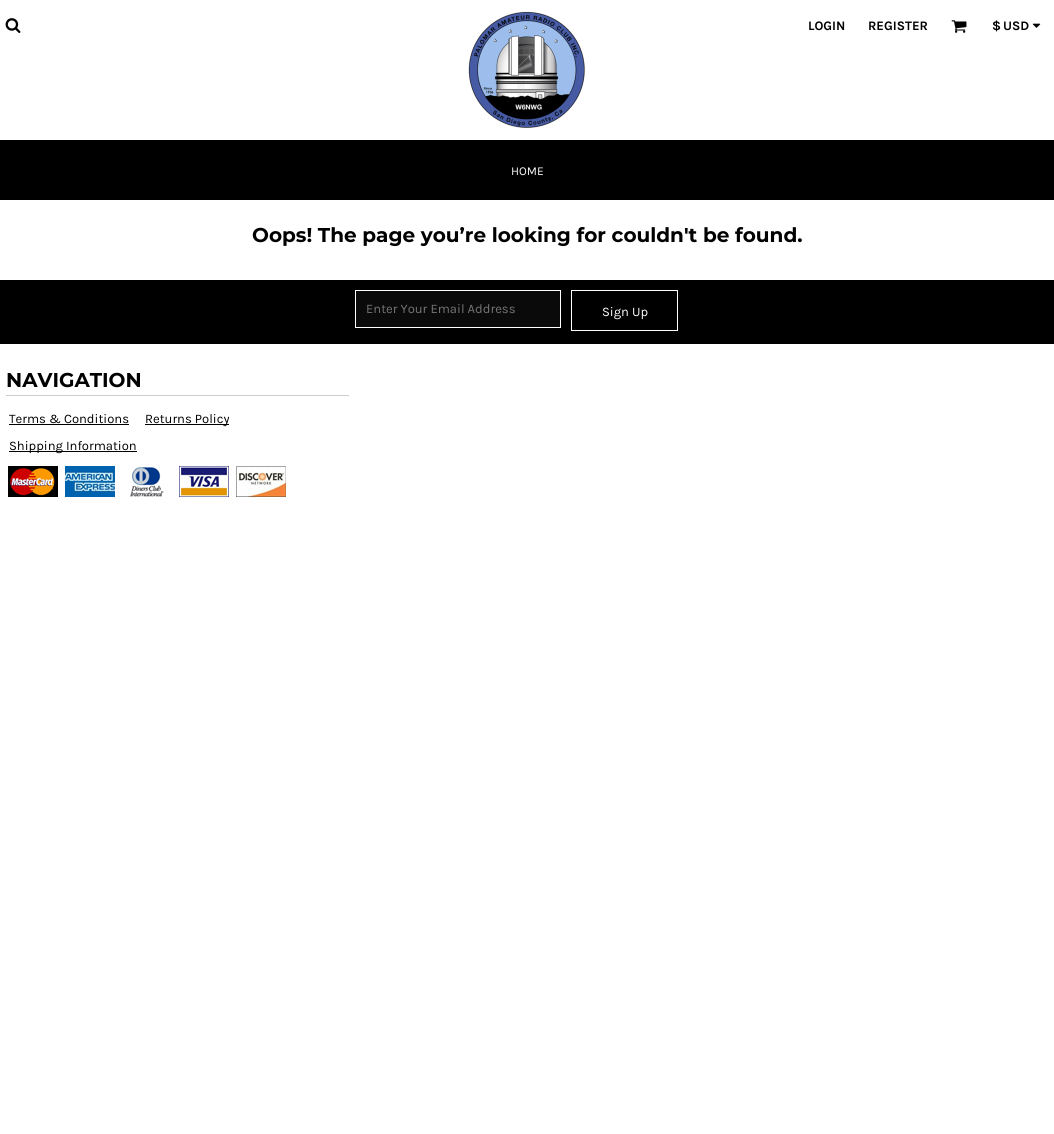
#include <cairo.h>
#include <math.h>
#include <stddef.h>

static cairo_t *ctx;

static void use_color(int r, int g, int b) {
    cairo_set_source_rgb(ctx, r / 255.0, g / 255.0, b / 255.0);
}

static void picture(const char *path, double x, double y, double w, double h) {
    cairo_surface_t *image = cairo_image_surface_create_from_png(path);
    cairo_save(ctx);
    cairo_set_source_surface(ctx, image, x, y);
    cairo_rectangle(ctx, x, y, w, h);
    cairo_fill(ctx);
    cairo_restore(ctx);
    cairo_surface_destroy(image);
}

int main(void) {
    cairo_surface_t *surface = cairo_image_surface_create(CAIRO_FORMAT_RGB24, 1054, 1134);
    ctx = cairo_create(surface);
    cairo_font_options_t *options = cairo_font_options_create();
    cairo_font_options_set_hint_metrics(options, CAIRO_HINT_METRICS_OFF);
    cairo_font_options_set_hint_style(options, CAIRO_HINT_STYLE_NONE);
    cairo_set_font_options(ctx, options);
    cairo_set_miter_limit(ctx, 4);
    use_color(255, 255, 255);
    cairo_paint(ctx);
    picture("img1.png", 5, 18, 16, 15);
    picture("img2.png", 468, 11, 117, 117);
    cairo_select_font_face(ctx, "Karla", CAIRO_FONT_SLANT_NORMAL, CAIRO_FONT_WEIGHT_BOLD);
    cairo_set_font_size(ctx, 13);
    use_color(0, 0, 0);
    cairo_move_to(ctx, 808, 30);
    cairo_show_text(ctx, "LOGIN");
    cairo_move_to(ctx, 868, 30);
    cairo_show_text(ctx, "REGISTER");
    picture("img3.png", 951, 20, 16, 13);
    cairo_move_to(ctx, 992, 30);
    cairo_show_text(ctx, "$");
    cairo_move_to(ctx, 1003, 30);
    cairo_show_text(ctx, "USD");
    picture("img4.png", 1032, 23, 9, 5);
    cairo_rectangle(ctx, 0, 140, 1054, 60);
    cairo_fill(ctx);
    cairo_select_font_face(ctx, "Karla", CAIRO_FONT_SLANT_NORMAL, CAIRO_FONT_WEIGHT_NORMAL);
    cairo_set_font_size(ctx, 12);
    use_color(255, 255, 255);
    cairo_move_to(ctx, 511, 175);
    cairo_show_text(ctx, "HOME");
    cairo_select_font_face(ctx, "Montserrat", CAIRO_FONT_SLANT_NORMAL, CAIRO_FONT_WEIGHT_BOLD);
    cairo_set_font_size(ctx, 20);
    use_color(0, 0, 0);
    cairo_move_to(ctx, 252, 242);
    cairo_show_text(ctx, "Oops! The page you’re looking for couldn't be found.");
    cairo_rectangle(ctx, 0, 280, 1054, 64);
    cairo_fill(ctx);
    use_color(10, 10, 10);
    cairo_rectangle(ctx, 355.5, 290.5, 205, 37);
    cairo_fill_preserve(ctx);
    use_color(255, 255, 255);
    cairo_set_line_width(ctx, 1);
    cairo_stroke(ctx);
    cairo_select_font_face(ctx, "Karla", CAIRO_FONT_SLANT_NORMAL, CAIRO_FONT_WEIGHT_NORMAL);
    cairo_set_font_size(ctx, 13);
    use_color(117, 117, 117);
    cairo_move_to(ctx, 366, 313);
    cairo_show_text(ctx, "Enter Your Email Address");
    cairo_rectangle(ctx, 571.5, 290.5, 106, 40);
    use_color(255, 255, 255);
    cairo_stroke(ctx);
    cairo_move_to(ctx, 602, 316);
    cairo_show_text(ctx, "Sign Up");
    use_color(204, 204, 204);
    cairo_rectangle(ctx, 6, 395, 343, 1);
    cairo_fill(ctx);
    cairo_select_font_face(ctx, "Montserrat", CAIRO_FONT_SLANT_NORMAL, CAIRO_FONT_WEIGHT_BOLD);
    cairo_set_font_size(ctx, 20);
    use_color(0, 0, 0);
    cairo_move_to(ctx, 6, 387);
    cairo_show_text(ctx, "NAVIGATION");
    cairo_select_font_face(ctx, "Karla", CAIRO_FONT_SLANT_NORMAL, CAIRO_FONT_WEIGHT_NORMAL);
    cairo_set_font_size(ctx, 13);
    cairo_move_to(ctx, 9, 423);
    cairo_show_text(ctx, "Terms & Conditions");
    cairo_rectangle(ctx, 9, 424, 120, 1);
    cairo_fill(ctx);
    cairo_rectangle(ctx, 145, 424, 84, 1);
    cairo_fill(ctx);
    cairo_move_to(ctx, 145, 423);
    cairo_show_text(ctx, "Returns Policy");
    cairo_rectangle(ctx, 9, 451, 128, 1);
    cairo_fill(ctx);
    cairo_move_to(ctx, 9, 450);
    cairo_show_text(ctx, "Shipping Information");
    picture("img5.png", 8, 466, 50, 31);
    picture("img6.png", 65, 466, 50, 31);
    picture("img7.png", 130, 467, 34, 30);
    picture("img8.png", 179, 466, 50, 31);
    picture("img9.png", 236, 466, 50, 31);
    cairo_surface_write_to_png(surface, "result.png");
    cairo_font_options_destroy(options);
    cairo_destroy(ctx);
    cairo_surface_destroy(surface);
    return 0;
}
